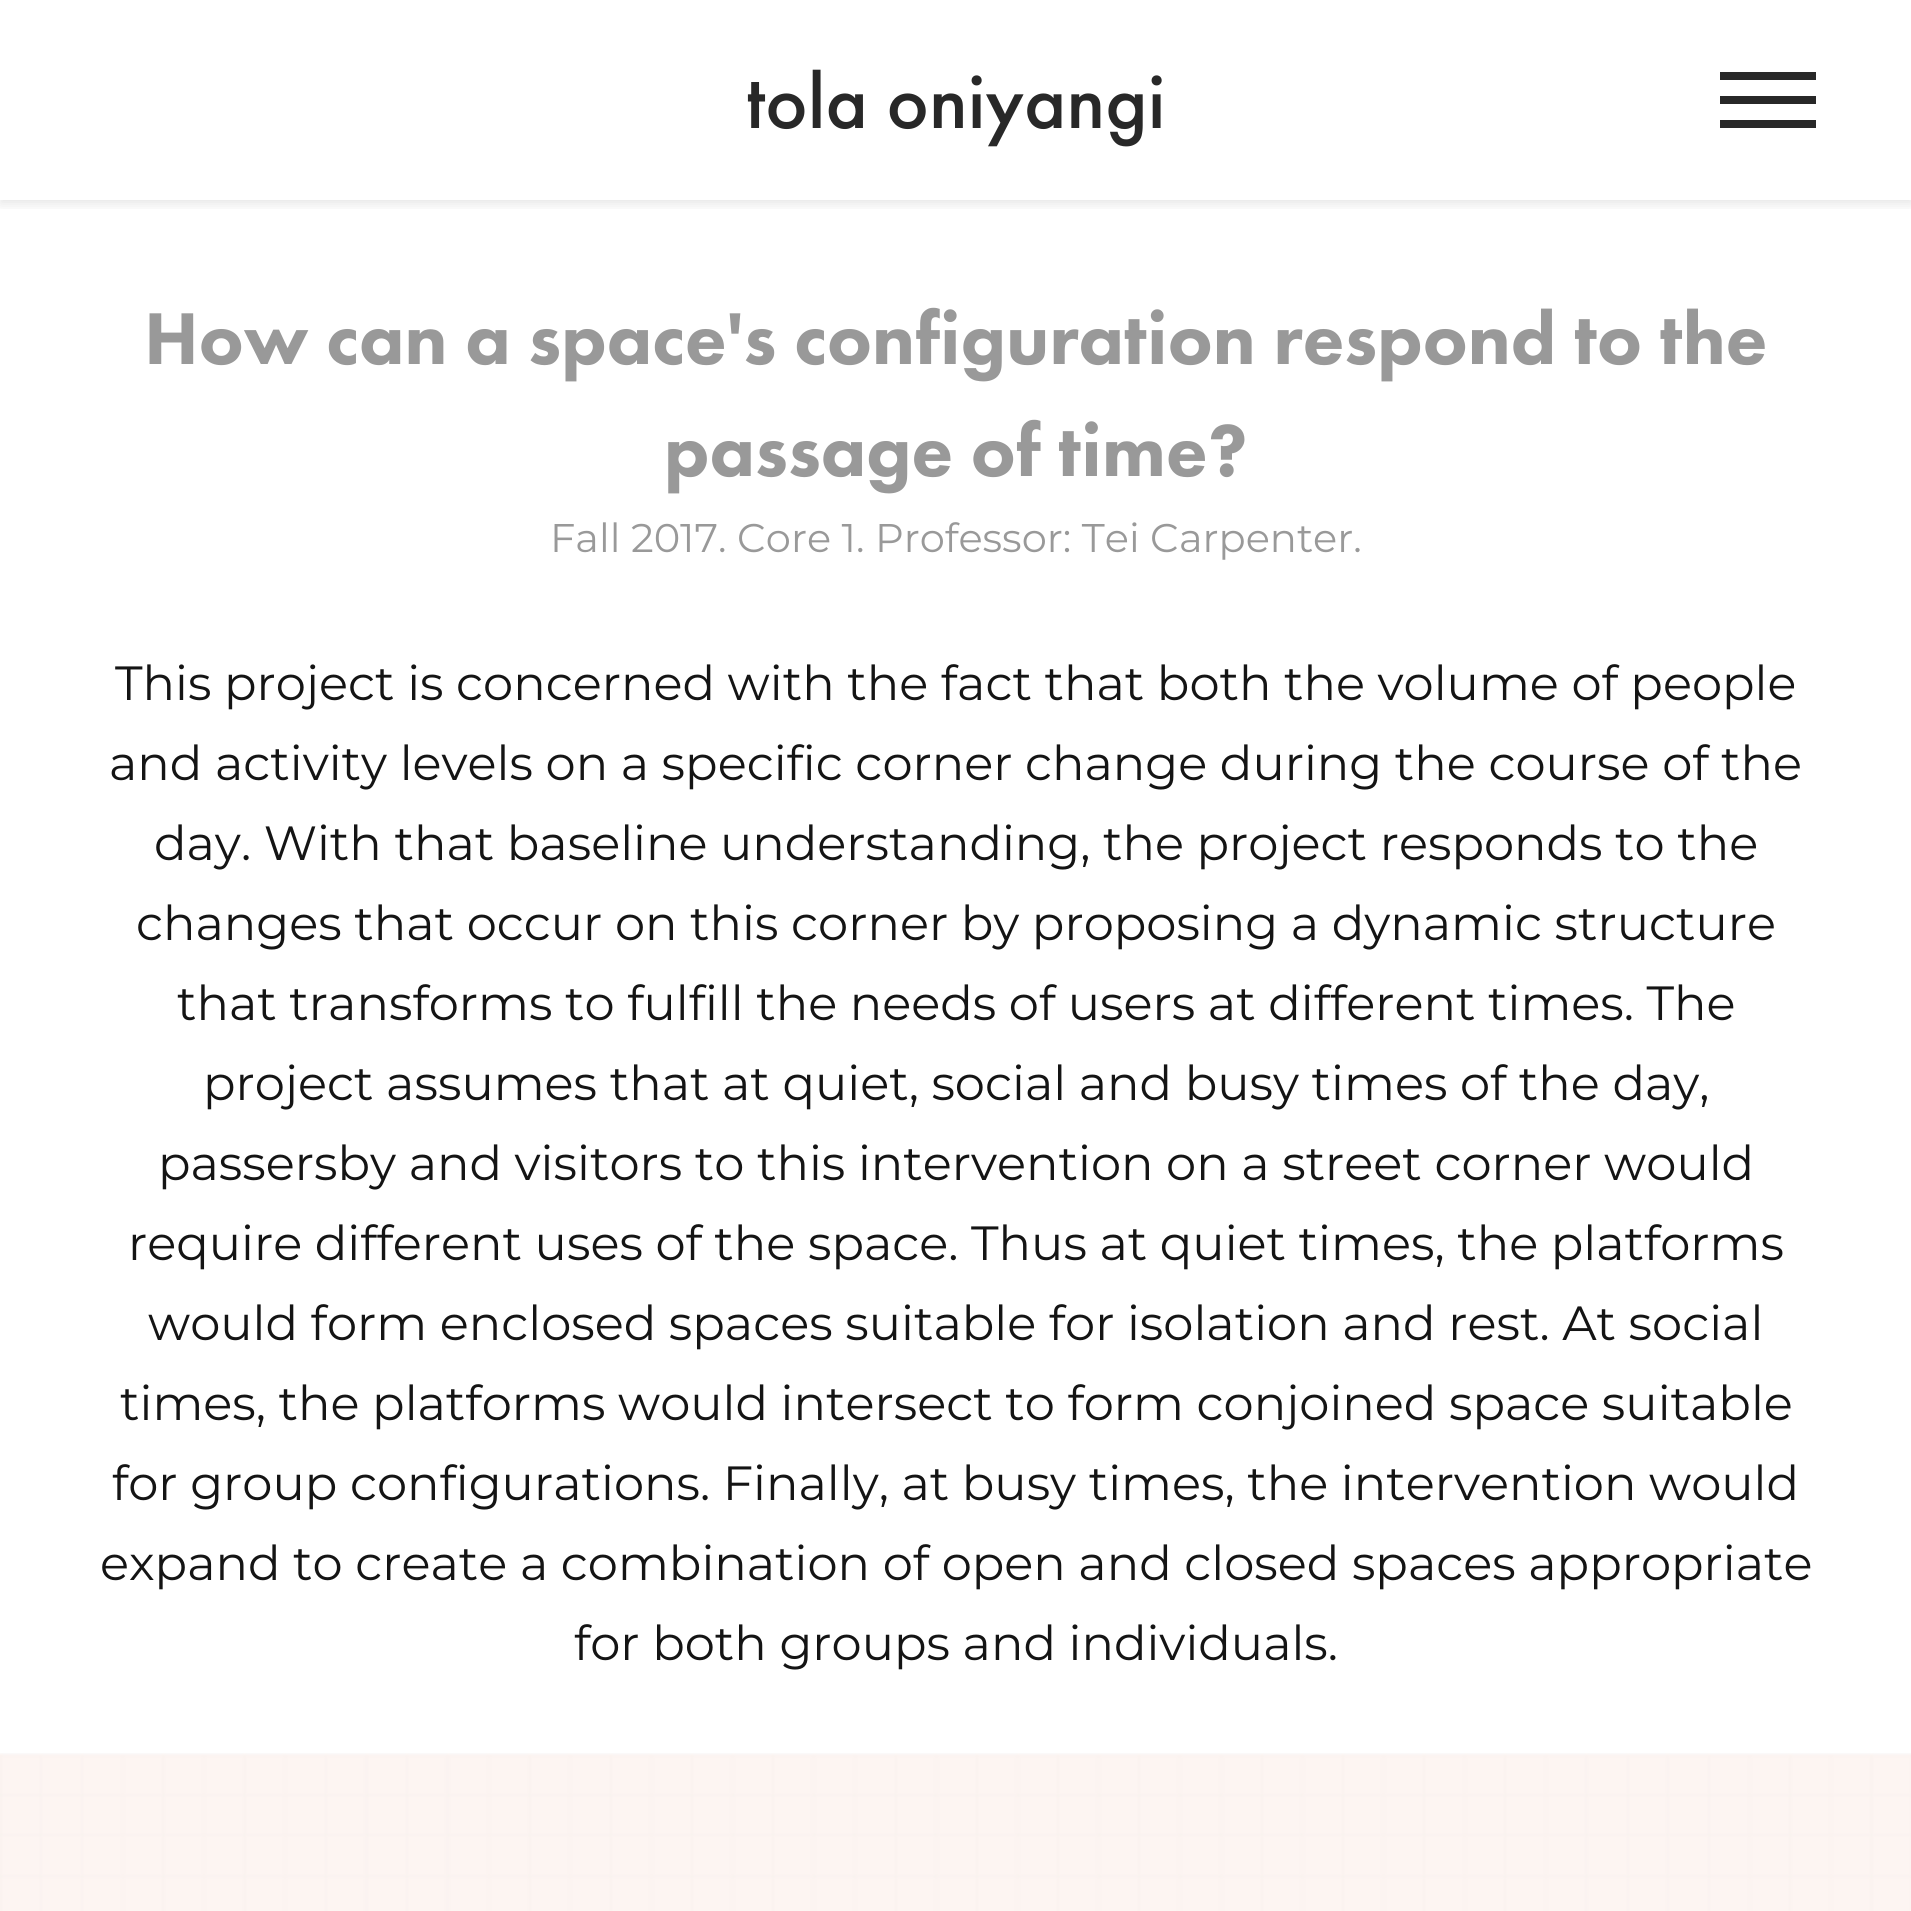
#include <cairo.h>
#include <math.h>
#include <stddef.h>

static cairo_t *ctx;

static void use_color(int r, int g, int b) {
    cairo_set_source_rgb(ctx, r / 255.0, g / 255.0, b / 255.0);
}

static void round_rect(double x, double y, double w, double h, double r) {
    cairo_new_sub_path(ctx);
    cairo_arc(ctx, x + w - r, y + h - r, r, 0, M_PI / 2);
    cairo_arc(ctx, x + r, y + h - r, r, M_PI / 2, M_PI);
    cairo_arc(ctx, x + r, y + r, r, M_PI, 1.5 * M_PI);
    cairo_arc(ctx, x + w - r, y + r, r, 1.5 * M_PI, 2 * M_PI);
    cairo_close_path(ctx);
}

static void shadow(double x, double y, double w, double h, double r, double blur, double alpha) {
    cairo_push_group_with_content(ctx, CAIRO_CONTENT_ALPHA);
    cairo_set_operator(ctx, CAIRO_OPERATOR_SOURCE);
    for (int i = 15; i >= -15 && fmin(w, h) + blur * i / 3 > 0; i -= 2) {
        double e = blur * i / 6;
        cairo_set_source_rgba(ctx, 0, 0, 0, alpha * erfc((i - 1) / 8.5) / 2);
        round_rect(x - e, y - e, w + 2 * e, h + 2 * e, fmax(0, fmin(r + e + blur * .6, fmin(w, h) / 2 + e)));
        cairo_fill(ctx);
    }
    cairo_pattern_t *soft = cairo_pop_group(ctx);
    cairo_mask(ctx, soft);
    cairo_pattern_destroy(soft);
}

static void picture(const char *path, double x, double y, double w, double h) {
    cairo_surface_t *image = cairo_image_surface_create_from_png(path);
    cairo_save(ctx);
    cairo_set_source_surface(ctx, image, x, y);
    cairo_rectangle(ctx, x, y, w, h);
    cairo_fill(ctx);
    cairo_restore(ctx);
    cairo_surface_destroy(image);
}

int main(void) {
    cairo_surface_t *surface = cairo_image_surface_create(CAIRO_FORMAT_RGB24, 1911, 1911);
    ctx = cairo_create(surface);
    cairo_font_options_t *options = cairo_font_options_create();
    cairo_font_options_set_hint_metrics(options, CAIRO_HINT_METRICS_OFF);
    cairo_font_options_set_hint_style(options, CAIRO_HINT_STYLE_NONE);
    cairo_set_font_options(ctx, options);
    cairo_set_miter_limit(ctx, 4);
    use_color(255, 255, 255);
    cairo_paint(ctx);
    cairo_save(ctx);
    cairo_rectangle(ctx, 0, 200, 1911, 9);
    cairo_clip(ctx);
    use_color(0, 0, 0);
    shadow(0, 4, 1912, 200, 0, 6, 0.1);
    cairo_restore(ctx);
    cairo_select_font_face(ctx, "Futura PT Medium", CAIRO_FONT_SLANT_NORMAL, CAIRO_FONT_WEIGHT_NORMAL);
    cairo_set_font_size(ctx, 80);
    use_color(40, 40, 40);
    cairo_move_to(ctx, 746, 128);
    cairo_show_text(ctx, "tola oniyangi");
    cairo_rectangle(ctx, 1720, 72, 96, 8);
    cairo_fill(ctx);
    cairo_rectangle(ctx, 1720, 96, 96, 8);
    cairo_fill(ctx);
    cairo_rectangle(ctx, 1720, 120, 96, 8);
    cairo_fill(ctx);
    cairo_select_font_face(ctx, "Futura PT Black", CAIRO_FONT_SLANT_NORMAL, CAIRO_FONT_WEIGHT_NORMAL);
    cairo_set_font_size(ctx, 76);
    use_color(153, 153, 153);
    cairo_move_to(ctx, 144, 364);
    cairo_show_text(ctx, "How can a space's configuration respond to the");
    cairo_move_to(ctx, 664, 476);
    cairo_show_text(ctx, "passage of time?");
    cairo_select_font_face(ctx, "Montserrat", CAIRO_FONT_SLANT_NORMAL, CAIRO_FONT_WEIGHT_NORMAL);
    cairo_set_font_size(ctx, 40);
    cairo_move_to(ctx, 550, 552);
    cairo_show_text(ctx, "Fall 2017. Core 1. Professor: Tei Carpenter.");
    cairo_set_font_size(ctx, 48);
    use_color(20, 20, 20);
    cairo_move_to(ctx, 115, 700);
    cairo_show_text(ctx, "This project is concerned with the fact that both the volume of people");
    cairo_move_to(ctx, 109, 780);
    cairo_show_text(ctx, "and activity levels on a specific corner change during the course of the");
    cairo_move_to(ctx, 154, 860);
    cairo_show_text(ctx, "day. With that baseline understanding, the project responds to the");
    cairo_move_to(ctx, 136, 940);
    cairo_show_text(ctx, "changes that occur on this corner by proposing a dynamic structure");
    cairo_move_to(ctx, 177, 1020);
    cairo_show_text(ctx, "that transforms to fulfill the needs of users at different times. The");
    cairo_move_to(ctx, 203, 1100);
    cairo_show_text(ctx, "project assumes that at quiet, social and busy times of the day,");
    cairo_move_to(ctx, 158, 1180);
    cairo_show_text(ctx, "passersby and visitors to this intervention on a street corner would");
    cairo_move_to(ctx, 128, 1260);
    cairo_show_text(ctx, "require different uses of the space. Thus at quiet times, the platforms");
    cairo_move_to(ctx, 148, 1340);
    cairo_show_text(ctx, "would form enclosed spaces suitable for isolation and rest. At social");
    cairo_move_to(ctx, 120, 1420);
    cairo_show_text(ctx, "times, the platforms would intersect to form conjoined space suitable");
    cairo_move_to(ctx, 112, 1500);
    cairo_show_text(ctx, "for group configurations. Finally, at busy times, the intervention would");
    cairo_move_to(ctx, 100, 1580);
    cairo_show_text(ctx, "expand to create a combination of open and closed spaces appropriate");
    cairo_move_to(ctx, 574, 1660);
    cairo_show_text(ctx, "for both groups and individuals.");
    picture("img1.png", 0, 1753, 1911, 158);
    cairo_surface_write_to_png(surface, "result.png");
    cairo_font_options_destroy(options);
    cairo_destroy(ctx);
    cairo_surface_destroy(surface);
    return 0;
}
